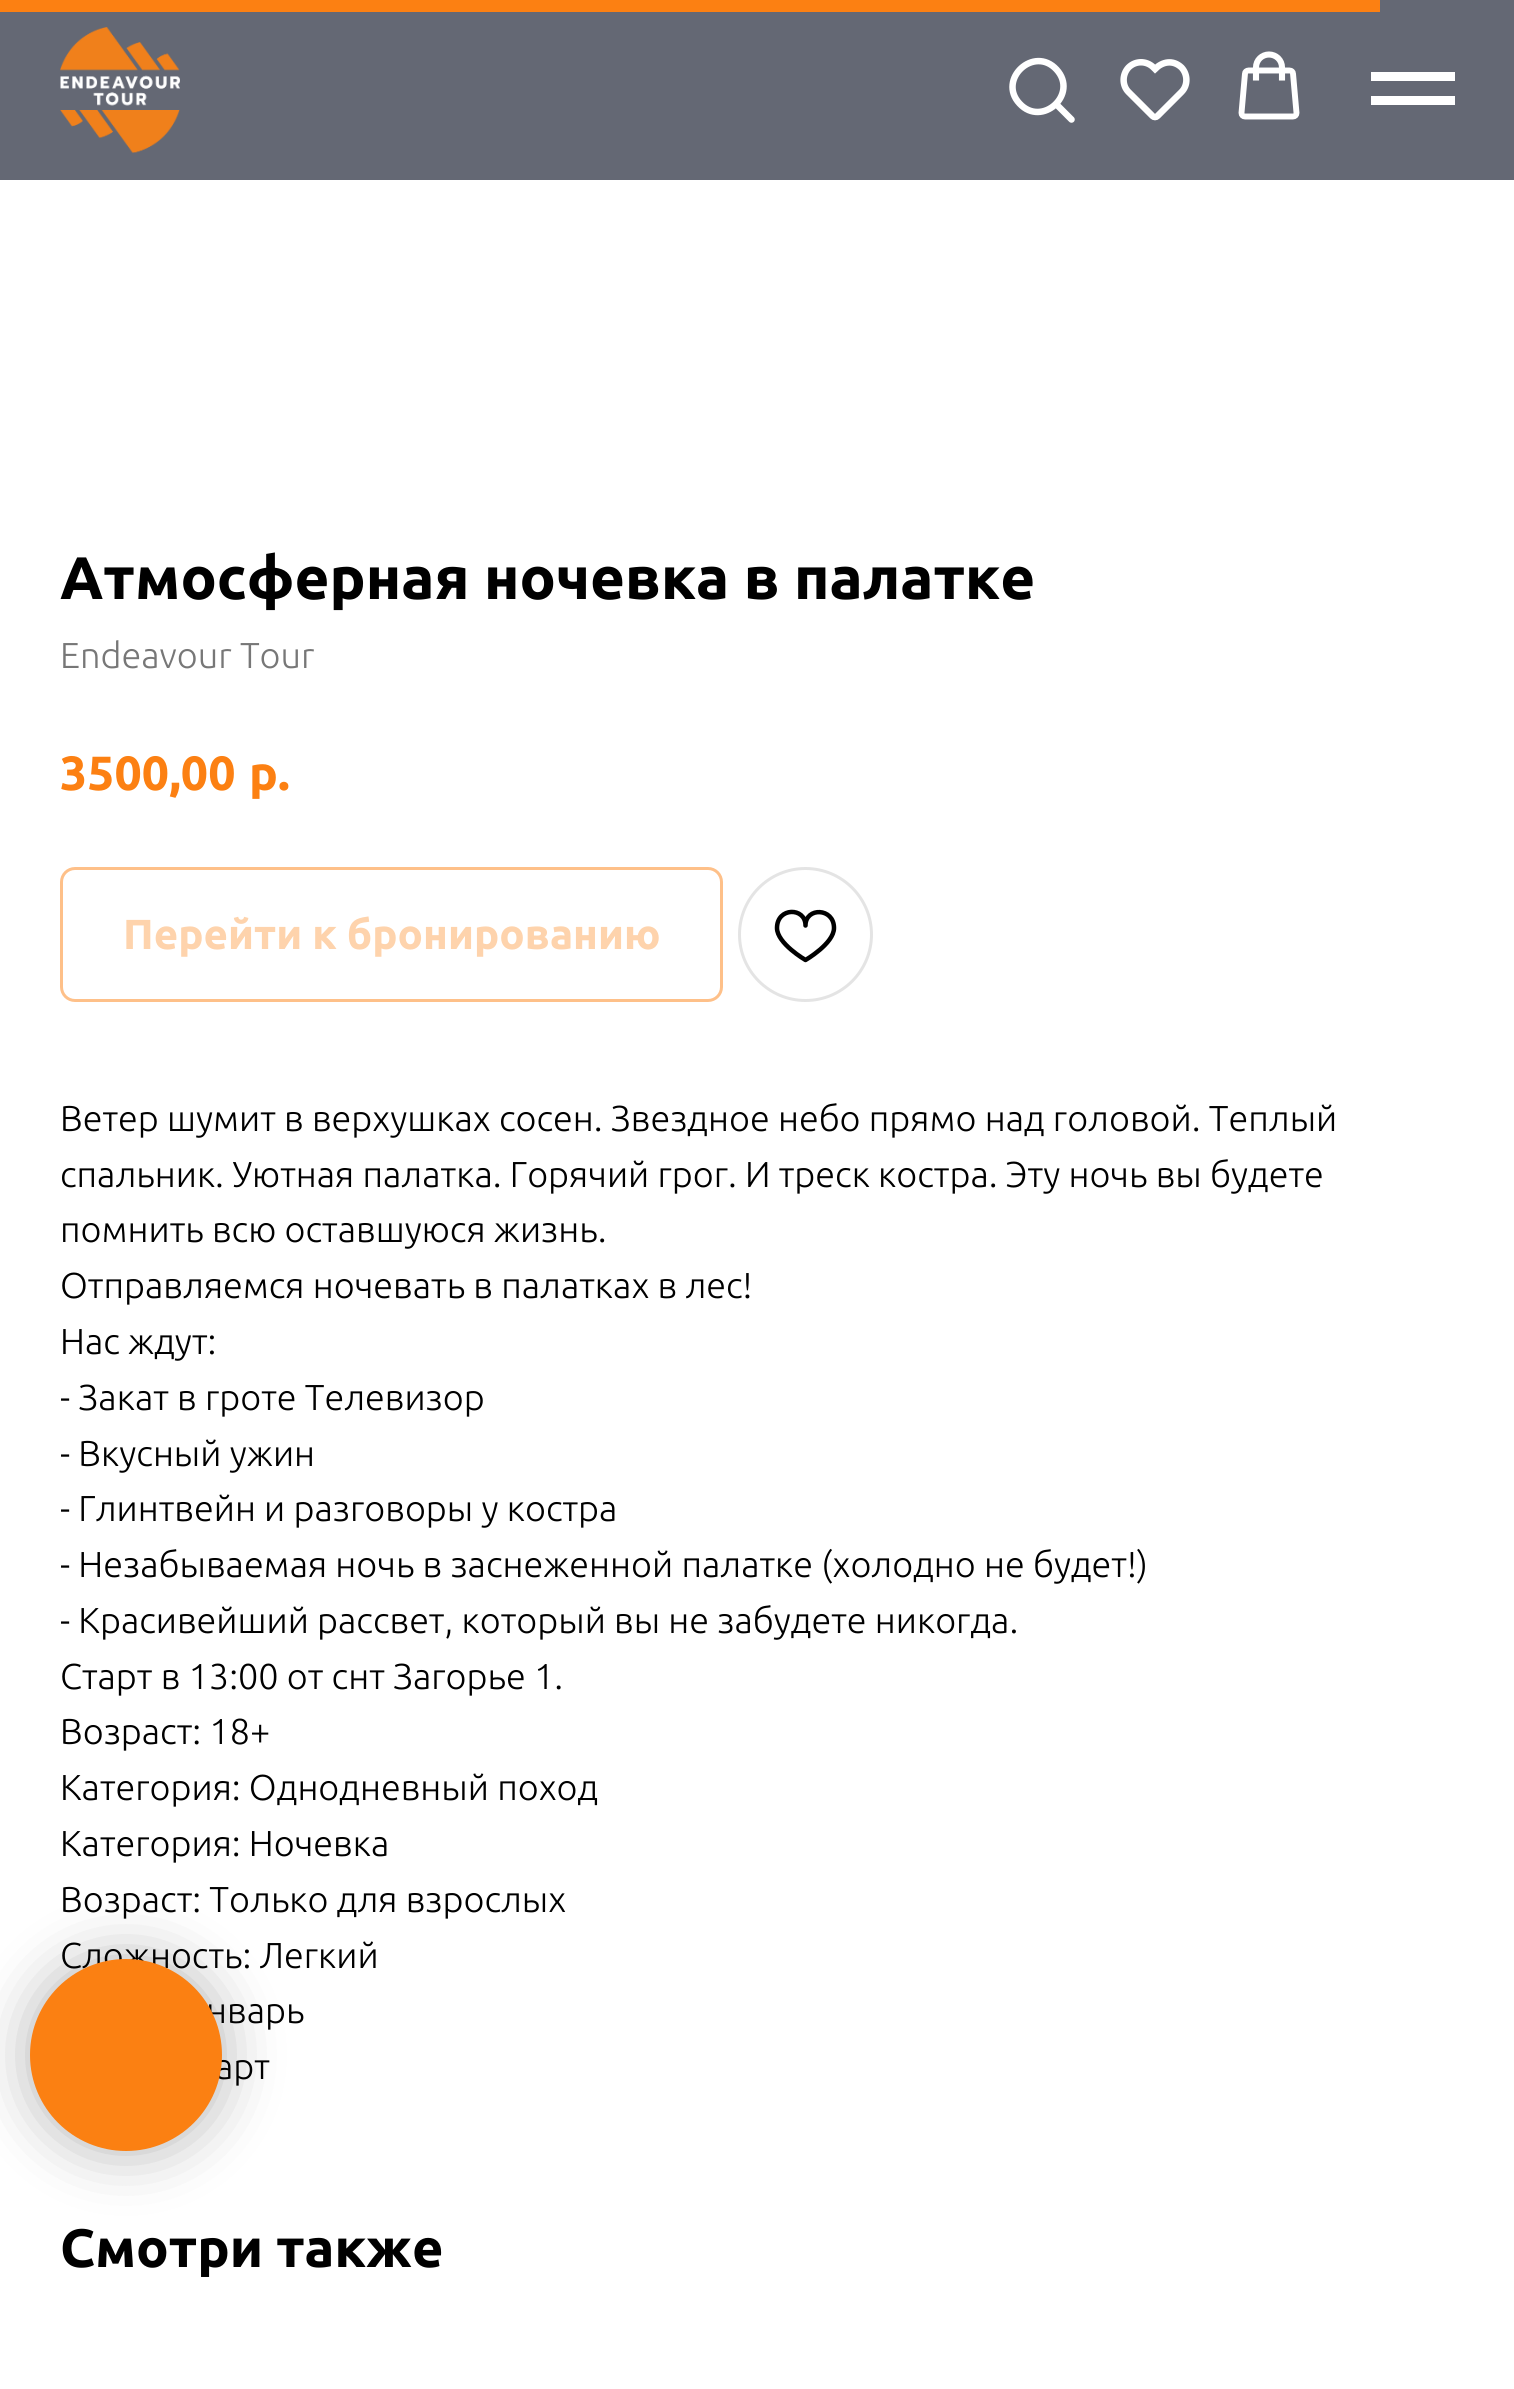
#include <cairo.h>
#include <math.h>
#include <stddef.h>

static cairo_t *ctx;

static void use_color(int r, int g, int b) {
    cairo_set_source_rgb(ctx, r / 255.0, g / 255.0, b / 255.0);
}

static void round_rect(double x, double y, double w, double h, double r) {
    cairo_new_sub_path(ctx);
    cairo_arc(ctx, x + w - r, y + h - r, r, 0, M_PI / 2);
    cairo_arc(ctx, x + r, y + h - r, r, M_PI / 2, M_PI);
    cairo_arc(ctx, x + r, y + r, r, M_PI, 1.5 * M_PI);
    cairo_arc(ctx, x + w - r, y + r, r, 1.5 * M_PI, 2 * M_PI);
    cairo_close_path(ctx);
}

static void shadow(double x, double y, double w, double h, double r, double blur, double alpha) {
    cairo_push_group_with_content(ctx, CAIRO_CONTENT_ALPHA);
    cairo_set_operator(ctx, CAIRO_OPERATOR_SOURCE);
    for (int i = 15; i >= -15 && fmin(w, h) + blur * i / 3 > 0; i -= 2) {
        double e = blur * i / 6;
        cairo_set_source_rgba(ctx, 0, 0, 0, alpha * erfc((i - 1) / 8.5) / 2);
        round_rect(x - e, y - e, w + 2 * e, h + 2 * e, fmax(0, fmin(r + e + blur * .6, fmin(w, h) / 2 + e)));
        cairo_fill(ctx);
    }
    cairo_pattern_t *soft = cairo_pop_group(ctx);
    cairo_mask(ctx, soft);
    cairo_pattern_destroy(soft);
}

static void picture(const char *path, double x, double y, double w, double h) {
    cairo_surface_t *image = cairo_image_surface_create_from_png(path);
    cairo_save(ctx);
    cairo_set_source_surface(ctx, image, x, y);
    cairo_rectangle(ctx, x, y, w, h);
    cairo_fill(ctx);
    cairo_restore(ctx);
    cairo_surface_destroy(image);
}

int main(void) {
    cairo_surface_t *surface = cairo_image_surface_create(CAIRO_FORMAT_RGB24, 1514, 2389);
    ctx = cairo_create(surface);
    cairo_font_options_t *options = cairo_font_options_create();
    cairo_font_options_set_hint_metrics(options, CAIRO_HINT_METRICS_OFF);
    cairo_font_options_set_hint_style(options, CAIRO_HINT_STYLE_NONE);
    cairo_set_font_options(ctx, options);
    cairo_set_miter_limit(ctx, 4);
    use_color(255, 255, 255);
    cairo_paint(ctx);
    use_color(100, 104, 116);
    cairo_rectangle(ctx, 0, 0, 1514, 180);
    cairo_fill(ctx);
    picture("img1.png", 60, 27, 120, 126);
    cairo_new_path(ctx);
    cairo_move_to(ctx, 1056.5, 69.5);
    cairo_curve_to(ctx, 1079, 94, 1042, 128, 1019.5, 103.5);
    cairo_curve_to(ctx, 997, 79.5, 1034, 45, 1056.5, 69.5);
    cairo_close_path(ctx);
    use_color(255, 255, 255);
    cairo_set_line_width(ctx, 6.5);
    cairo_stroke(ctx);
    cairo_new_path(ctx);
    cairo_move_to(ctx, 1058.5, 106.5);
    cairo_line_to(ctx, 1071.5, 119.5);
    cairo_set_line_cap(ctx, CAIRO_LINE_CAP_ROUND);
    cairo_stroke(ctx);
    cairo_new_path(ctx);
    cairo_move_to(ctx, 1181.5, 67.5);
    cairo_curve_to(ctx, 1188, 74.5, 1188, 85.5, 1181.5, 92);
    cairo_line_to(ctx, 1157.5, 116);
    cairo_curve_to(ctx, 1156, 117.5, 1154, 117.5, 1152.5, 116);
    cairo_line_to(ctx, 1128.5, 92);
    cairo_curve_to(ctx, 1122, 85.5, 1122, 74.5, 1128.5, 67.5);
    cairo_curve_to(ctx, 1135.5, 60.5, 1146.5, 60.5, 1153.5, 67.5);
    cairo_line_to(ctx, 1155, 69);
    cairo_curve_to(ctx, 1162.5, 61.5, 1173, 59.5, 1181.5, 67.5);
    cairo_close_path(ctx);
    cairo_stroke(ctx);
    cairo_new_path(ctx);
    cairo_move_to(ctx, 1245, 73.5);
    cairo_curve_to(ctx, 1245, 72, 1246.5, 70.5, 1248.5, 70.5);
    cairo_line_to(ctx, 1289.5, 70.5);
    cairo_curve_to(ctx, 1291.5, 70.5, 1293, 72, 1293, 73.5);
    cairo_line_to(ctx, 1296.5, 113);
    cairo_curve_to(ctx, 1296.5, 115, 1295, 116.5, 1293, 116.5);
    cairo_line_to(ctx, 1245, 116.5);
    cairo_curve_to(ctx, 1243, 116.5, 1241.5, 115, 1241.5, 113);
    cairo_close_path(ctx);
    cairo_set_line_width(ctx, 5.9);
    cairo_set_line_cap(ctx, CAIRO_LINE_CAP_BUTT);
    cairo_stroke(ctx);
    cairo_new_path(ctx);
    cairo_move_to(ctx, 1282, 80.5);
    cairo_line_to(ctx, 1282, 67.5);
    cairo_curve_to(ctx, 1282, 60, 1276, 54.5, 1269, 54.5);
    cairo_curve_to(ctx, 1262, 54.5, 1256, 60, 1256, 67.5);
    cairo_line_to(ctx, 1256, 80.5);
    cairo_set_line_width(ctx, 6.1);
    cairo_stroke(ctx);
    cairo_rectangle(ctx, 1371, 72, 84, 9);
    cairo_fill(ctx);
    cairo_rectangle(ctx, 1371, 96, 84, 9);
    cairo_fill(ctx);
    use_color(252, 128, 18);
    cairo_rectangle(ctx, 0, 0, 1380, 12);
    cairo_fill(ctx);
    use_color(0, 0, 0);
    shadow(30, 1959, 192, 192, 96, 30, 0.3);
    cairo_select_font_face(ctx, "Ubuntu Light", CAIRO_FONT_SLANT_NORMAL, CAIRO_FONT_WEIGHT_NORMAL);
    cairo_set_font_size(ctx, 36);
    use_color(0, 0, 0);
    cairo_move_to(ctx, 60, 1968);
    cairo_show_text(ctx, "Сложность: Легкий");
    cairo_move_to(ctx, 206, 2023);
    cairo_show_text(ctx, "нварь");
    cairo_move_to(ctx, 215, 2079);
    cairo_show_text(ctx, "арт");
    use_color(251, 128, 18);
    cairo_new_path(ctx);
    cairo_arc(ctx, 126, 2055, 93, 0, 2 * M_PI);
    cairo_fill_preserve(ctx);
    cairo_set_line_width(ctx, 6);
    cairo_stroke(ctx);
    cairo_select_font_face(ctx, "Ubuntu", CAIRO_FONT_SLANT_NORMAL, CAIRO_FONT_WEIGHT_BOLD);
    cairo_set_font_size(ctx, 60);
    use_color(0, 0, 0);
    cairo_move_to(ctx, 60, 599);
    cairo_show_text(ctx, "Атмосферная ночевка в палатке");
    cairo_select_font_face(ctx, "Ubuntu Light", CAIRO_FONT_SLANT_NORMAL, CAIRO_FONT_WEIGHT_NORMAL);
    cairo_set_font_size(ctx, 36);
    use_color(119, 119, 119);
    cairo_move_to(ctx, 60, 668);
    cairo_show_text(ctx, "Endeavour Tour");
    cairo_select_font_face(ctx, "Ubuntu", CAIRO_FONT_SLANT_NORMAL, CAIRO_FONT_WEIGHT_BOLD);
    cairo_set_font_size(ctx, 48);
    use_color(252, 128, 18);
    cairo_move_to(ctx, 60, 790);
    cairo_show_text(ctx, "3500,00");
    cairo_move_to(ctx, 249, 790);
    cairo_show_text(ctx, "р.");
    round_rect(61.5, 868.5, 660, 132, 13.5);
    use_color(254, 192, 137);
    cairo_set_line_width(ctx, 3);
    cairo_stroke(ctx);
    cairo_set_font_size(ctx, 42);
    use_color(254, 211, 172);
    cairo_move_to(ctx, 123, 949);
    cairo_show_text(ctx, "Перейти к бронированию");
    cairo_new_path(ctx);
    cairo_arc(ctx, 805.5, 934.5, 66, 0, 2 * M_PI);
    use_color(228, 228, 228);
    cairo_stroke(ctx);
    cairo_new_path(ctx);
    cairo_move_to(ctx, 834, 928);
    cairo_curve_to(ctx, 834, 943.5, 805.5, 960, 805.5, 960);
    cairo_curve_to(ctx, 805.5, 960, 777, 943.5, 777, 928);
    cairo_curve_to(ctx, 777, 907, 805.5, 907, 805.5, 925.5);
    cairo_curve_to(ctx, 805.5, 907, 834, 907.5, 834, 928);
    cairo_close_path(ctx);
    use_color(0, 0, 0);
    cairo_set_line_width(ctx, 4.5);
    cairo_set_line_join(ctx, CAIRO_LINE_JOIN_ROUND);
    cairo_stroke(ctx);
    cairo_select_font_face(ctx, "Ubuntu Light", CAIRO_FONT_SLANT_NORMAL, CAIRO_FONT_WEIGHT_NORMAL);
    cairo_set_font_size(ctx, 36);
    cairo_move_to(ctx, 60, 1131);
    cairo_show_text(ctx, "Ветер шумит в верхушках сосен. Звездное небо прямо над головой. Теплый");
    cairo_move_to(ctx, 60, 1187);
    cairo_show_text(ctx, "спальник. Уютная палатка. Горячий грог. И треск костра. Эту ночь вы будете");
    cairo_move_to(ctx, 60, 1242);
    cairo_show_text(ctx, "помнить всю оставшуюся жизнь.");
    cairo_move_to(ctx, 60, 1298);
    cairo_show_text(ctx, "Отправляемся ночевать в палатках в лес!");
    cairo_move_to(ctx, 60, 1354);
    cairo_show_text(ctx, "Нас ждут:");
    cairo_move_to(ctx, 60, 1410);
    cairo_show_text(ctx, "- Закат в гроте Телевизор");
    cairo_move_to(ctx, 60, 1466);
    cairo_show_text(ctx, "- Вкусный ужин");
    cairo_move_to(ctx, 60, 1521);
    cairo_show_text(ctx, "- Глинтвейн и разговоры у костра");
    cairo_move_to(ctx, 60, 1577);
    cairo_show_text(ctx, "- Незабываемая ночь в заснеженной палатке (холодно не будет!)");
    cairo_move_to(ctx, 60, 1633);
    cairo_show_text(ctx, "- Красивейший рассвет, который вы не забудете никогда.");
    cairo_move_to(ctx, 60, 1689);
    cairo_show_text(ctx, "Старт в 13:00 от снт Загорье 1.");
    cairo_move_to(ctx, 60, 1744);
    cairo_show_text(ctx, "Возраст: 18+");
    cairo_move_to(ctx, 60, 1800);
    cairo_show_text(ctx, "Категория: Однодневный поход");
    cairo_move_to(ctx, 60, 1856);
    cairo_show_text(ctx, "Категория: Ночевка");
    cairo_move_to(ctx, 60, 1912);
    cairo_show_text(ctx, "Возраст: Только для взрослых");
    cairo_select_font_face(ctx, "Ubuntu", CAIRO_FONT_SLANT_NORMAL, CAIRO_FONT_WEIGHT_BOLD);
    cairo_set_font_size(ctx, 54);
    cairo_move_to(ctx, 60, 2267);
    cairo_show_text(ctx, "Смотри также");
    cairo_surface_write_to_png(surface, "result.png");
    cairo_font_options_destroy(options);
    cairo_destroy(ctx);
    cairo_surface_destroy(surface);
    return 0;
}
